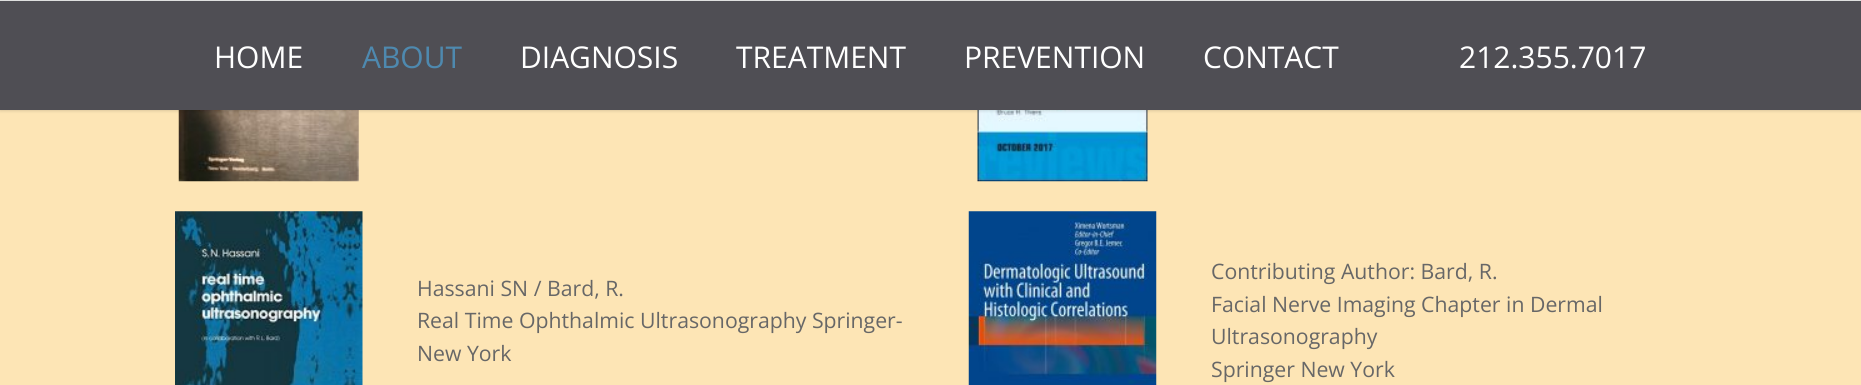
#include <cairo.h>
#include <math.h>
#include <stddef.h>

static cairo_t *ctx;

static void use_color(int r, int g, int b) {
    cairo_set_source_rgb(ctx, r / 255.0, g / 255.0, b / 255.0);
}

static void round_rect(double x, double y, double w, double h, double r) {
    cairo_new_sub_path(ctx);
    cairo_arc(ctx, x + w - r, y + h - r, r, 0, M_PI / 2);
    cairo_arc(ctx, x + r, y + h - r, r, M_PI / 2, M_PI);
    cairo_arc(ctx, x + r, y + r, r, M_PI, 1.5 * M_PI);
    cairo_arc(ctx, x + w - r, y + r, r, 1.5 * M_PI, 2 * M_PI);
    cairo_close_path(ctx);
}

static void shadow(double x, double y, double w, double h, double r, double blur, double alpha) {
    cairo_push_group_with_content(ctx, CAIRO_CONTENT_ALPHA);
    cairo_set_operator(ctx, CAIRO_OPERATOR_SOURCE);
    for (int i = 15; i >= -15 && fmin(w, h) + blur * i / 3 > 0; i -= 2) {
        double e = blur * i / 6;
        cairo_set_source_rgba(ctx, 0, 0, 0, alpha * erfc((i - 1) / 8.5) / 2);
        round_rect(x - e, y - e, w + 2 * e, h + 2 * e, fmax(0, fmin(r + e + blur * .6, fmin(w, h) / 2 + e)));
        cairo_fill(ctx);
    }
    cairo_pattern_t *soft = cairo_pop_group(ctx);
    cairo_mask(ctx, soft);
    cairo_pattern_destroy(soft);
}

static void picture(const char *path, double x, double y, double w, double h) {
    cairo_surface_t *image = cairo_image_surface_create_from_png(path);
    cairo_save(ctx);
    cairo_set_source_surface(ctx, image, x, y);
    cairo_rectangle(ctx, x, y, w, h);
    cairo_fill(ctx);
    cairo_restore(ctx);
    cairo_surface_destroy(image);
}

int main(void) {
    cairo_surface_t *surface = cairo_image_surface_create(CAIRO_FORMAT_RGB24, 1861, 385);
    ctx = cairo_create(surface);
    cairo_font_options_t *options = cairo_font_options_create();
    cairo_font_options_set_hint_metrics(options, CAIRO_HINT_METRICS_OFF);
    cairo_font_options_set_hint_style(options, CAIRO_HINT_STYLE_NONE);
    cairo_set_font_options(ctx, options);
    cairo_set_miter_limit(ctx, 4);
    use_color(253, 229, 181);
    cairo_paint(ctx);
    picture("img1.png", 178, 110, 181, 72);
    picture("img2.png", 977, 110, 171, 72);
    use_color(0, 0, 0);
    shadow(0, 0, 1861, 110, 0, 2, 0.22);
    use_color(223, 223, 223);
    cairo_rectangle(ctx, 0, 0, 1861, 1);
    cairo_fill(ctx);
    use_color(79, 78, 84);
    cairo_rectangle(ctx, 0, 1, 1861, 109);
    cairo_fill(ctx);
    cairo_select_font_face(ctx, "Open Sans", CAIRO_FONT_SLANT_NORMAL, CAIRO_FONT_WEIGHT_NORMAL);
    cairo_set_font_size(ctx, 30);
    use_color(255, 255, 255);
    cairo_move_to(ctx, 214, 68);
    cairo_show_text(ctx, "HOME");
    use_color(78, 137, 175);
    cairo_move_to(ctx, 362, 68);
    cairo_show_text(ctx, "ABOUT");
    use_color(255, 255, 255);
    cairo_move_to(ctx, 520, 68);
    cairo_show_text(ctx, "DIAGNOSIS");
    cairo_move_to(ctx, 736, 68);
    cairo_show_text(ctx, "TREATMENT");
    cairo_move_to(ctx, 964, 68);
    cairo_show_text(ctx, "PREVENTION");
    cairo_move_to(ctx, 1203, 68);
    cairo_show_text(ctx, "CONTACT");
    cairo_move_to(ctx, 1459, 68);
    cairo_show_text(ctx, "212.355.7017");
    picture("img3.png", 175, 211, 188, 174);
    cairo_set_font_size(ctx, 21.25);
    use_color(103, 103, 103);
    cairo_move_to(ctx, 417, 296);
    cairo_show_text(ctx, "Hassani SN / Bard, R.");
    cairo_move_to(ctx, 417, 328);
    cairo_show_text(ctx, "Real Time Ophthalmic Ultrasonography Springer-");
    cairo_move_to(ctx, 417, 361);
    cairo_show_text(ctx, "New York");
    picture("img4.png", 968, 211, 189, 174);
    cairo_move_to(ctx, 1211, 279);
    cairo_show_text(ctx, "Contributing Author: Bard, R.");
    cairo_move_to(ctx, 1211, 312);
    cairo_show_text(ctx, "Facial Nerve Imaging Chapter in Dermal");
    cairo_move_to(ctx, 1211, 344);
    cairo_show_text(ctx, "Ultrasonography");
    cairo_move_to(ctx, 1211, 377);
    cairo_show_text(ctx, "Springer New York");
    cairo_surface_write_to_png(surface, "result.png");
    cairo_font_options_destroy(options);
    cairo_destroy(ctx);
    cairo_surface_destroy(surface);
    return 0;
}
